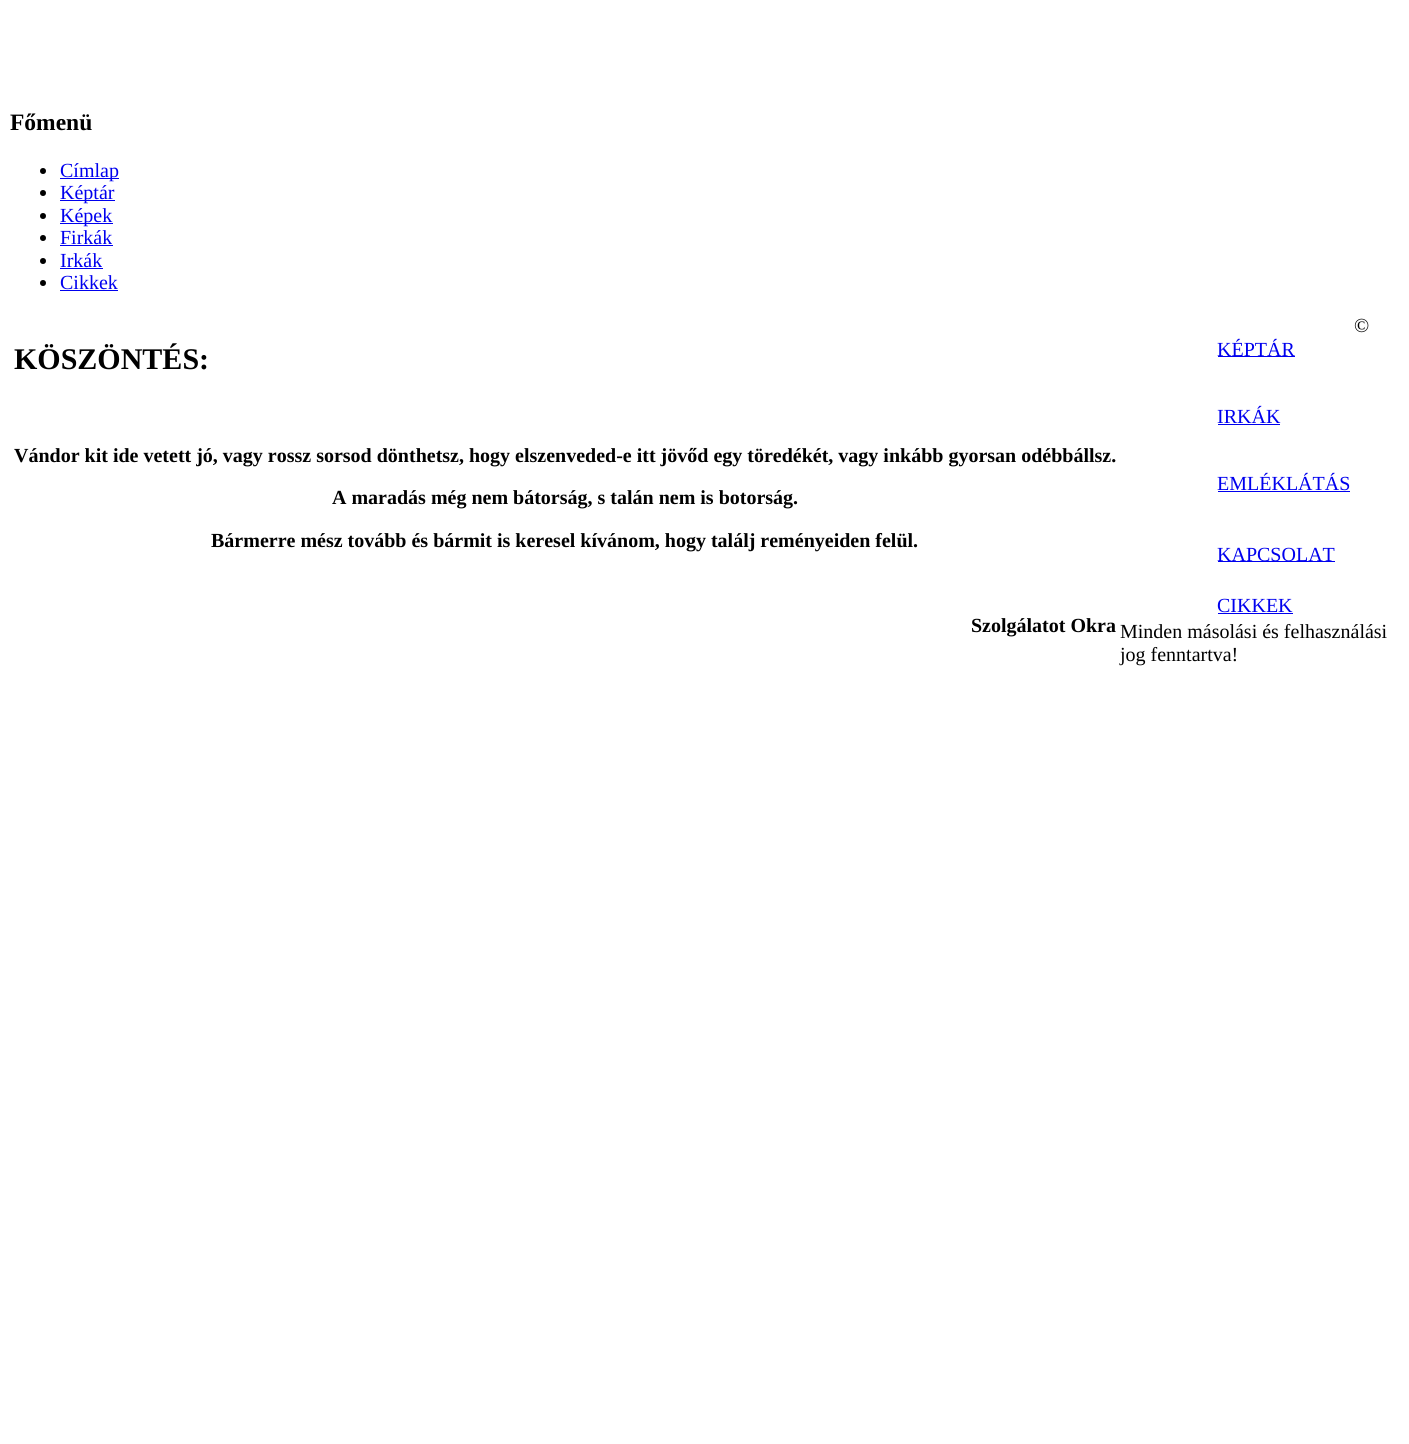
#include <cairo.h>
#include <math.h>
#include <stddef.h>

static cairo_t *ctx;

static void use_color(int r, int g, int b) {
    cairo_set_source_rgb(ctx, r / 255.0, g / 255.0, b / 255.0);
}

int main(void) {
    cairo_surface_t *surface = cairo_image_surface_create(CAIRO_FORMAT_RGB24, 1409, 1444);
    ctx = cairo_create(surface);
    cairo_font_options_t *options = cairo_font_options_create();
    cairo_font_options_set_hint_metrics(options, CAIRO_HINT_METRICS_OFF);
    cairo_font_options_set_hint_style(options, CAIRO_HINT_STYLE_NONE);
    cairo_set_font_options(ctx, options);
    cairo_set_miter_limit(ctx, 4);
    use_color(255, 255, 255);
    cairo_paint(ctx);
    cairo_select_font_face(ctx, "Liberation Serif", CAIRO_FONT_SLANT_NORMAL, CAIRO_FONT_WEIGHT_BOLD);
    cairo_set_font_size(ctx, 23.5);
    use_color(0, 0, 0);
    cairo_move_to(ctx, 10, 130);
    cairo_show_text(ctx, "Főmenü");
    cairo_new_path(ctx);
    cairo_arc(ctx, 43, 171, 3, 0, 2 * M_PI);
    cairo_fill(ctx);
    use_color(0, 0, 238);
    cairo_rectangle(ctx, 60, 178, 59, 1);
    cairo_fill(ctx);
    cairo_select_font_face(ctx, "Liberation Serif", CAIRO_FONT_SLANT_NORMAL, CAIRO_FONT_WEIGHT_NORMAL);
    cairo_set_font_size(ctx, 20);
    cairo_move_to(ctx, 60, 177);
    cairo_show_text(ctx, "Címlap");
    use_color(0, 0, 0);
    cairo_new_path(ctx);
    cairo_arc(ctx, 43, 193, 3, 0, 2 * M_PI);
    cairo_fill(ctx);
    use_color(0, 0, 238);
    cairo_rectangle(ctx, 60, 200, 55, 1);
    cairo_fill(ctx);
    cairo_move_to(ctx, 60, 199);
    cairo_show_text(ctx, "Képtár");
    use_color(0, 0, 0);
    cairo_new_path(ctx);
    cairo_arc(ctx, 43, 216, 3, 0, 2 * M_PI);
    cairo_fill(ctx);
    use_color(0, 0, 238);
    cairo_rectangle(ctx, 60, 223, 53, 1);
    cairo_fill(ctx);
    cairo_move_to(ctx, 60, 222);
    cairo_show_text(ctx, "Képek");
    use_color(0, 0, 0);
    cairo_new_path(ctx);
    cairo_arc(ctx, 43, 238, 3, 0, 2 * M_PI);
    cairo_fill(ctx);
    use_color(0, 0, 238);
    cairo_move_to(ctx, 60, 244);
    cairo_show_text(ctx, "Firkák");
    cairo_rectangle(ctx, 60, 245, 53, 1);
    cairo_fill(ctx);
    use_color(0, 0, 0);
    cairo_arc(ctx, 43, 261, 3, 0, 2 * M_PI);
    cairo_fill(ctx);
    use_color(0, 0, 238);
    cairo_move_to(ctx, 60, 267);
    cairo_show_text(ctx, "Irkák");
    cairo_rectangle(ctx, 60, 268, 43, 1);
    cairo_fill(ctx);
    use_color(0, 0, 0);
    cairo_arc(ctx, 43, 283, 3, 0, 2 * M_PI);
    cairo_fill(ctx);
    use_color(0, 0, 238);
    cairo_move_to(ctx, 60, 289);
    cairo_show_text(ctx, "Cikkek");
    cairo_rectangle(ctx, 60, 290, 58, 1);
    cairo_fill(ctx);
    cairo_select_font_face(ctx, "Liberation Serif", CAIRO_FONT_SLANT_NORMAL, CAIRO_FONT_WEIGHT_BOLD);
    cairo_set_font_size(ctx, 30);
    use_color(0, 0, 0);
    cairo_move_to(ctx, 14, 369);
    cairo_show_text(ctx, "KÖSZÖNTÉS:");
    cairo_set_font_size(ctx, 20);
    cairo_move_to(ctx, 14, 462);
    cairo_show_text(ctx, "Vándor kit ide vetett jó, vagy rossz sorsod dönthetsz, hogy elszenveded-e itt jövőd egy töredékét, vagy inkább gyorsan odébbállsz.");
    cairo_move_to(ctx, 332, 504);
    cairo_show_text(ctx, "A maradás még nem bátorság, s talán nem is botorság.");
    cairo_move_to(ctx, 211, 547);
    cairo_show_text(ctx, "Bármerre mész tovább és bármit is keresel kívánom, hogy találj reményeiden felül.");
    cairo_move_to(ctx, 971, 632);
    cairo_show_text(ctx, "Szolgálatot Okra");
    cairo_select_font_face(ctx, "Liberation Serif", CAIRO_FONT_SLANT_NORMAL, CAIRO_FONT_WEIGHT_NORMAL);
    use_color(0, 0, 238);
    cairo_move_to(ctx, 1217, 356);
    cairo_show_text(ctx, "KÉPTÁR");
    cairo_rectangle(ctx, 1218, 356, 77, 1);
    cairo_fill(ctx);
    cairo_move_to(ctx, 1217, 423);
    cairo_show_text(ctx, "IRKÁK");
    cairo_rectangle(ctx, 1218, 424, 62, 1);
    cairo_fill(ctx);
    cairo_move_to(ctx, 1217, 490);
    cairo_show_text(ctx, "EMLÉKLÁTÁS");
    cairo_rectangle(ctx, 1218, 491, 132, 1);
    cairo_fill(ctx);
    cairo_rectangle(ctx, 1218, 561, 117, 1);
    cairo_fill(ctx);
    cairo_move_to(ctx, 1217, 561);
    cairo_show_text(ctx, "KAPCSOLAT");
    cairo_move_to(ctx, 1217, 612);
    cairo_show_text(ctx, "CIKKEK");
    cairo_rectangle(ctx, 1218, 613, 75, 1);
    cairo_fill(ctx);
    use_color(0, 0, 0);
    cairo_move_to(ctx, 1354, 332);
    cairo_show_text(ctx, "©");
    cairo_move_to(ctx, 1120, 638);
    cairo_show_text(ctx, "Minden másolási és felhasználási");
    cairo_move_to(ctx, 1120, 661);
    cairo_show_text(ctx, "jog fenntartva!");
    cairo_surface_write_to_png(surface, "result.png");
    cairo_font_options_destroy(options);
    cairo_destroy(ctx);
    cairo_surface_destroy(surface);
    return 0;
}
